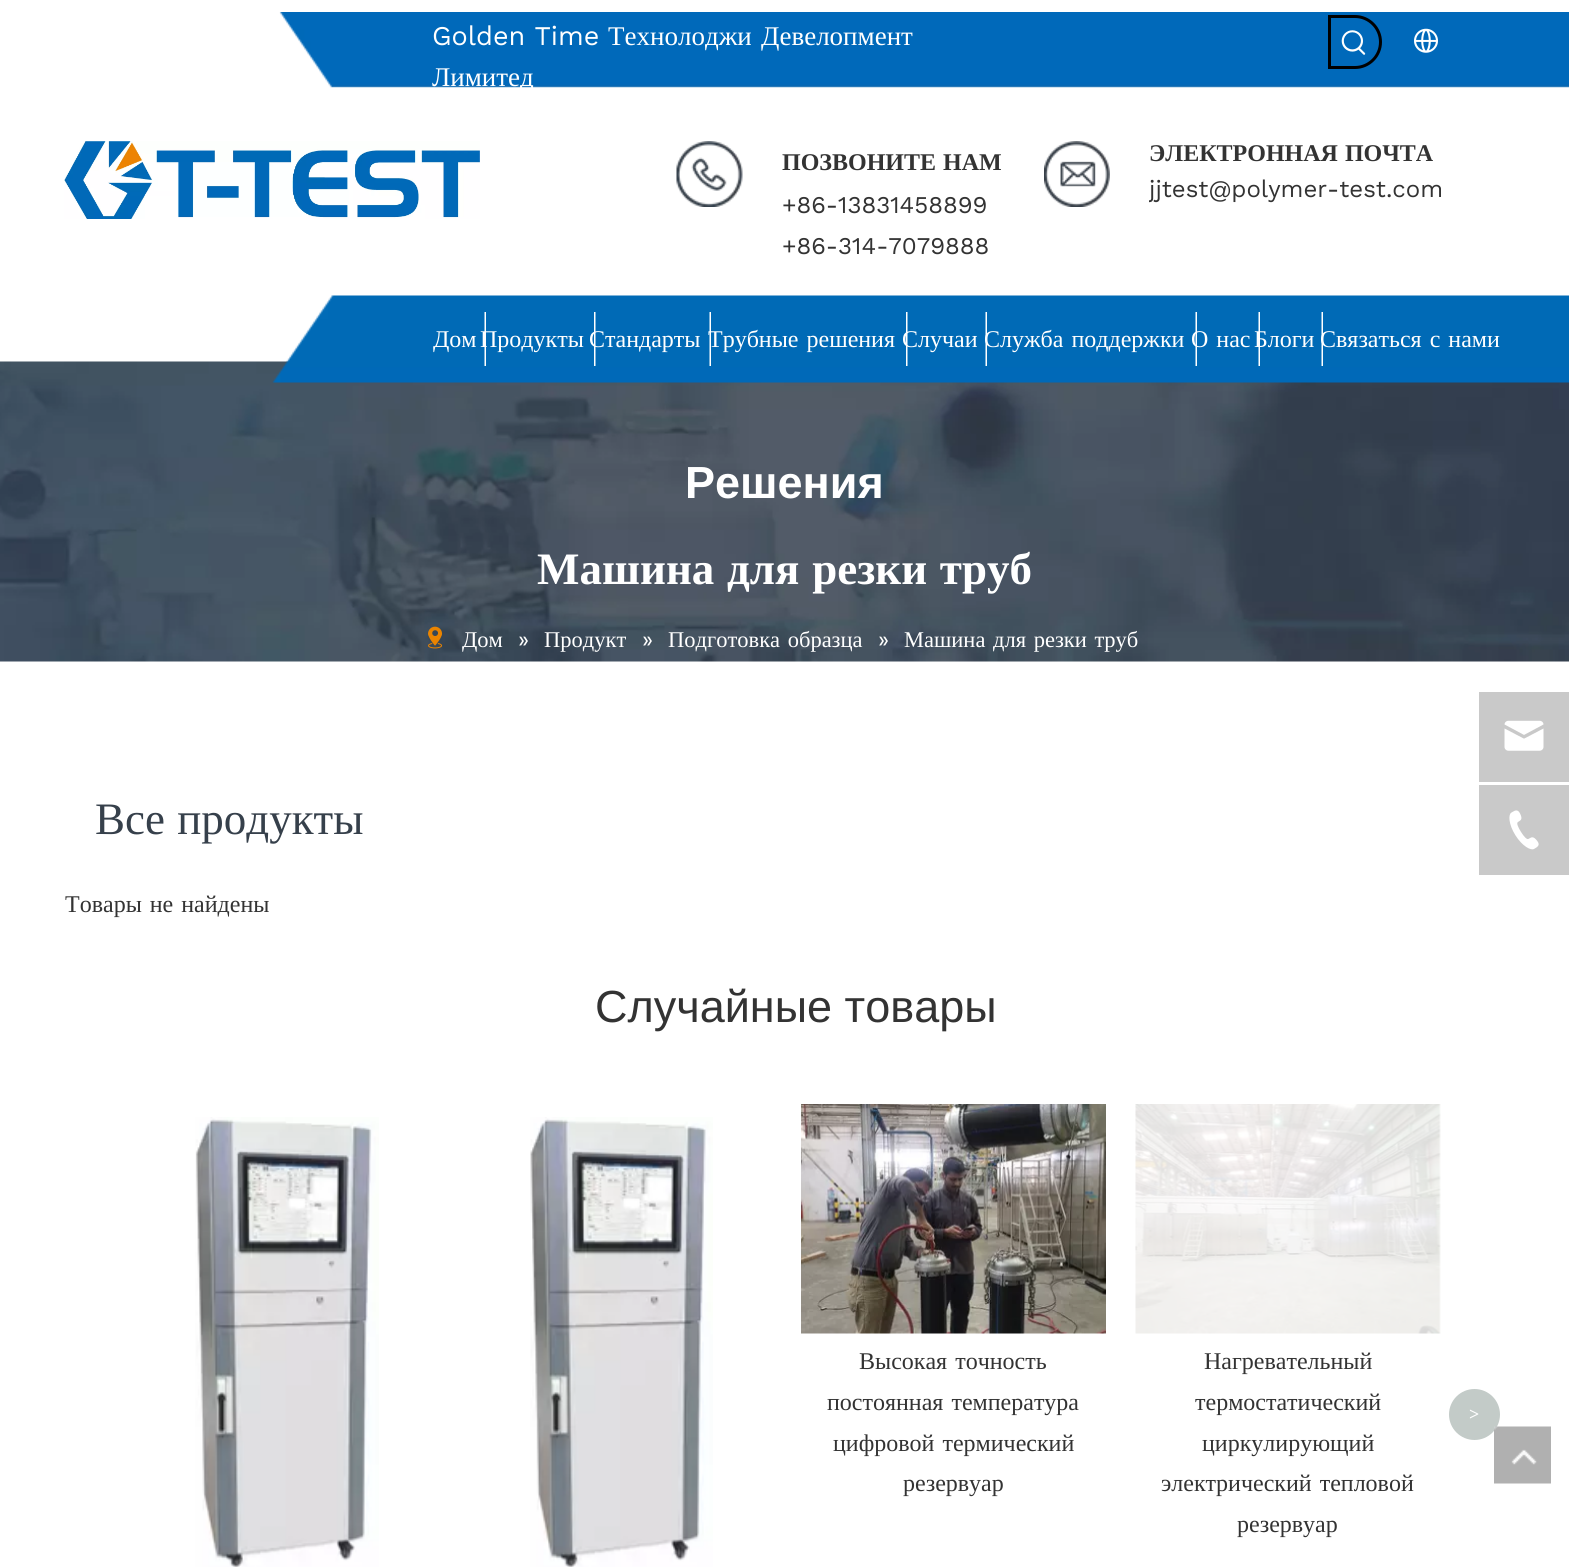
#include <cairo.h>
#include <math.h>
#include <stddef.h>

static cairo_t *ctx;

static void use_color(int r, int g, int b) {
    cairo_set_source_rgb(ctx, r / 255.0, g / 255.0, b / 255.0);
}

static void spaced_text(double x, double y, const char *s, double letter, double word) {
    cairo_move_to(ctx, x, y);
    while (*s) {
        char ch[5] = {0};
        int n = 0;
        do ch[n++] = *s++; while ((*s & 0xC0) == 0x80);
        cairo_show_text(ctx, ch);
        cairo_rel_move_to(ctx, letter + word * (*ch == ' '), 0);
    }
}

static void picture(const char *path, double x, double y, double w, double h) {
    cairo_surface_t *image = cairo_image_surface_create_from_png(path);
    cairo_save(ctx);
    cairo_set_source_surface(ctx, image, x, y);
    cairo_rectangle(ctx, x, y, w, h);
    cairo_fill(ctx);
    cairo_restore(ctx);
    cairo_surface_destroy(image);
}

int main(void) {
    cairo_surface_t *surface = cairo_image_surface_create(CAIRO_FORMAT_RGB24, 1569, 1567);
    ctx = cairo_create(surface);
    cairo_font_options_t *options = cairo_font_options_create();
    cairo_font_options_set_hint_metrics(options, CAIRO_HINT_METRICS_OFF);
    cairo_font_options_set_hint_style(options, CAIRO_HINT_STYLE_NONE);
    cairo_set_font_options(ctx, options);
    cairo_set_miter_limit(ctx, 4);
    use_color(255, 255, 255);
    cairo_paint(ctx);
    picture("img1.png", 279, 12, 1290, 76);
    cairo_select_font_face(ctx, "Work Sans", CAIRO_FONT_SLANT_NORMAL, CAIRO_FONT_WEIGHT_NORMAL);
    cairo_set_font_size(ctx, 27);
    use_color(255, 255, 255);
    cairo_move_to(ctx, 432, 45);
    cairo_show_text(ctx, "Golden Time");
    cairo_select_font_face(ctx, "Liberation Serif", CAIRO_FONT_SLANT_NORMAL, CAIRO_FONT_WEIGHT_NORMAL);
    cairo_move_to(ctx, 608, 45);
    cairo_show_text(ctx, "Технолоджи");
    cairo_move_to(ctx, 761, 45);
    cairo_show_text(ctx, "Девелопмент");
    cairo_move_to(ctx, 432, 86);
    cairo_show_text(ctx, "Лимитед");
    cairo_new_path(ctx);
    cairo_move_to(ctx, 1329.5, 16.5);
    cairo_line_to(ctx, 1355, 16.5);
    cairo_curve_to(ctx, 1369, 16.5, 1380.5, 28, 1380.5, 42);
    cairo_curve_to(ctx, 1380.5, 56, 1369, 67.5, 1355, 67.5);
    cairo_line_to(ctx, 1329.5, 67.5);
    cairo_close_path(ctx);
    use_color(0, 0, 0);
    cairo_set_line_width(ctx, 3);
    cairo_stroke(ctx);
    picture("img2.png", 1341, 30, 25, 25);
    picture("img3.png", 1414, 28, 24, 25);
    picture("img4.png", 64, 141, 416, 78);
    picture("img5.png", 676, 141, 67, 66);
    cairo_select_font_face(ctx, "Liberation Serif", CAIRO_FONT_SLANT_NORMAL, CAIRO_FONT_WEIGHT_BOLD);
    cairo_set_font_size(ctx, 24);
    use_color(51, 51, 51);
    spaced_text(782, 170, "ПОЗВОНИТЕ НАМ", 0, 1);
    cairo_select_font_face(ctx, "Work Sans", CAIRO_FONT_SLANT_NORMAL, CAIRO_FONT_WEIGHT_NORMAL);
    cairo_move_to(ctx, 782, 213);
    cairo_show_text(ctx, "+86-13831458899");
    cairo_move_to(ctx, 782, 254);
    cairo_show_text(ctx, "+86-314-7079888");
    picture("img6.png", 1044, 141, 66, 66);
    cairo_select_font_face(ctx, "Liberation Serif", CAIRO_FONT_SLANT_NORMAL, CAIRO_FONT_WEIGHT_BOLD);
    spaced_text(1149, 161, "ЭЛЕКТРОННАЯ ПОЧТА", 0, 1);
    cairo_save(ctx);
    cairo_rectangle(ctx, 1149, 165, 356, 48);
    cairo_clip(ctx);
    cairo_select_font_face(ctx, "Work Sans", CAIRO_FONT_SLANT_NORMAL, CAIRO_FONT_WEIGHT_NORMAL);
    cairo_move_to(ctx, 1149, 197);
    cairo_show_text(ctx, "jjtest@polymer-test.com");
    cairo_restore(ctx);
    picture("img16.png", 0, 361, 1569, 301);
    picture("img7.png", 272, 295, 1297, 88);
    cairo_select_font_face(ctx, "Liberation Serif", CAIRO_FONT_SLANT_NORMAL, CAIRO_FONT_WEIGHT_NORMAL);
    use_color(255, 255, 255);
    cairo_move_to(ctx, 433, 347);
    cairo_show_text(ctx, "Дом");
    cairo_move_to(ctx, 480, 347);
    cairo_show_text(ctx, "Продукты");
    picture("img8.png", 484, 312, 2, 54);
    cairo_move_to(ctx, 589, 347);
    cairo_show_text(ctx, "Стандарты");
    picture("img9.png", 594, 312, 2, 54);
    spaced_text(708, 347, "Трубные решения", 0, 2);
    picture("img10.png", 709, 312, 2, 54);
    cairo_move_to(ctx, 902, 347);
    cairo_show_text(ctx, "Случаи");
    picture("img11.png", 906, 312, 2, 54);
    spaced_text(984, 347, "Служба поддержки", 0, 2);
    picture("img12.png", 985, 312, 2, 54);
    spaced_text(1191, 347, "О нас", 0, 2);
    picture("img13.png", 1195, 312, 2, 54);
    cairo_move_to(ctx, 1254, 347);
    cairo_show_text(ctx, "Блоги");
    picture("img14.png", 1258, 312, 2, 54);
    spaced_text(1320, 347, "Связаться с нами", 0, 2);
    picture("img15.png", 1321, 312, 2, 54);
    cairo_select_font_face(ctx, "Liberation Sans", CAIRO_FONT_SLANT_NORMAL, CAIRO_FONT_WEIGHT_BOLD);
    cairo_set_font_size(ctx, 45);
    cairo_move_to(ctx, 685, 498);
    cairo_show_text(ctx, "Решения");
    cairo_select_font_face(ctx, "Liberation Serif", CAIRO_FONT_SLANT_NORMAL, CAIRO_FONT_WEIGHT_BOLD);
    spaced_text(537, 584, "Машина для резки труб", 0, 1.5);
    picture("img17.png", 428, 626, 15, 23);
    cairo_select_font_face(ctx, "Liberation Serif", CAIRO_FONT_SLANT_NORMAL, CAIRO_FONT_WEIGHT_NORMAL);
    cairo_set_font_size(ctx, 22.5);
    cairo_move_to(ctx, 462, 647);
    cairo_show_text(ctx, "Дом");
    cairo_select_font_face(ctx, "Work Sans", CAIRO_FONT_SLANT_NORMAL, CAIRO_FONT_WEIGHT_NORMAL);
    cairo_move_to(ctx, 518, 647);
    cairo_show_text(ctx, "»");
    cairo_select_font_face(ctx, "Liberation Serif", CAIRO_FONT_SLANT_NORMAL, CAIRO_FONT_WEIGHT_NORMAL);
    cairo_move_to(ctx, 544, 647);
    cairo_show_text(ctx, "Продукт");
    cairo_select_font_face(ctx, "Work Sans", CAIRO_FONT_SLANT_NORMAL, CAIRO_FONT_WEIGHT_NORMAL);
    cairo_move_to(ctx, 642, 647);
    cairo_show_text(ctx, "»");
    cairo_select_font_face(ctx, "Liberation Serif", CAIRO_FONT_SLANT_NORMAL, CAIRO_FONT_WEIGHT_NORMAL);
    spaced_text(668, 647, "Подготовка образца", 0, 2);
    cairo_select_font_face(ctx, "Work Sans", CAIRO_FONT_SLANT_NORMAL, CAIRO_FONT_WEIGHT_NORMAL);
    cairo_move_to(ctx, 878, 647);
    cairo_show_text(ctx, "»");
    cairo_select_font_face(ctx, "Liberation Serif", CAIRO_FONT_SLANT_NORMAL, CAIRO_FONT_WEIGHT_NORMAL);
    spaced_text(904, 647, "Машина для резки труб", 0, 2);
    cairo_set_font_size(ctx, 45);
    use_color(54, 64, 75);
    spaced_text(95, 834, "Все продукты", 0, 1);
    cairo_set_font_size(ctx, 24);
    use_color(51, 51, 51);
    spaced_text(65, 912, "Товары не найдены", 0, 2);
    cairo_select_font_face(ctx, "Liberation Sans", CAIRO_FONT_SLANT_NORMAL, CAIRO_FONT_WEIGHT_NORMAL);
    cairo_set_font_size(ctx, 45);
    cairo_move_to(ctx, 595, 1022);
    cairo_show_text(ctx, "Случайные товары");
    picture("img18.png", 195, 1117, 184, 450);
    picture("img19.png", 530, 1117, 183, 450);
    picture("img20.png", 801, 1104, 305, 230);
    cairo_select_font_face(ctx, "Liberation Serif", CAIRO_FONT_SLANT_NORMAL, CAIRO_FONT_WEIGHT_NORMAL);
    cairo_set_font_size(ctx, 24);
    spaced_text(859, 1369, "Высокая точность", 0, 2);
    spaced_text(827, 1410, "постоянная температура", 0, 2);
    spaced_text(833, 1451, "цифровой термический", 0, 2);
    cairo_move_to(ctx, 903, 1491);
    cairo_show_text(ctx, "резервуар");
    picture("img21.png", 1135, 1104, 306, 230);
    cairo_move_to(ctx, 1204, 1369);
    cairo_show_text(ctx, "Нагревательный");
    cairo_move_to(ctx, 1195, 1410);
    cairo_show_text(ctx, "термостатический");
    cairo_move_to(ctx, 1202, 1451);
    cairo_show_text(ctx, "циркулирующий");
    spaced_text(1161, 1491, "электрический тепловой", 0, 2);
    cairo_move_to(ctx, 1237, 1532);
    cairo_show_text(ctx, "резервуар");
    use_color(195, 203, 200);
    cairo_new_path(ctx);
    cairo_arc(ctx, 1474.5, 1414.5, 25.5, 0, 2 * M_PI);
    cairo_fill(ctx);
    cairo_select_font_face(ctx, "Liberation Serif", CAIRO_FONT_SLANT_NORMAL, CAIRO_FONT_WEIGHT_BOLD);
    cairo_set_font_size(ctx, 18);
    use_color(255, 255, 255);
    cairo_move_to(ctx, 1469, 1420);
    cairo_show_text(ctx, ">");
    use_color(201, 201, 201);
    cairo_rectangle(ctx, 1479, 692, 90, 90);
    cairo_fill(ctx);
    picture("img22.png", 1504, 720, 40, 31);
    cairo_rectangle(ctx, 1479, 785, 90, 90);
    cairo_fill(ctx);
    picture("img23.png", 1509, 810, 30, 40);
    picture("img24.png", 1494, 1426, 57, 58);
    cairo_surface_write_to_png(surface, "result.png");
    cairo_font_options_destroy(options);
    cairo_destroy(ctx);
    cairo_surface_destroy(surface);
    return 0;
}
